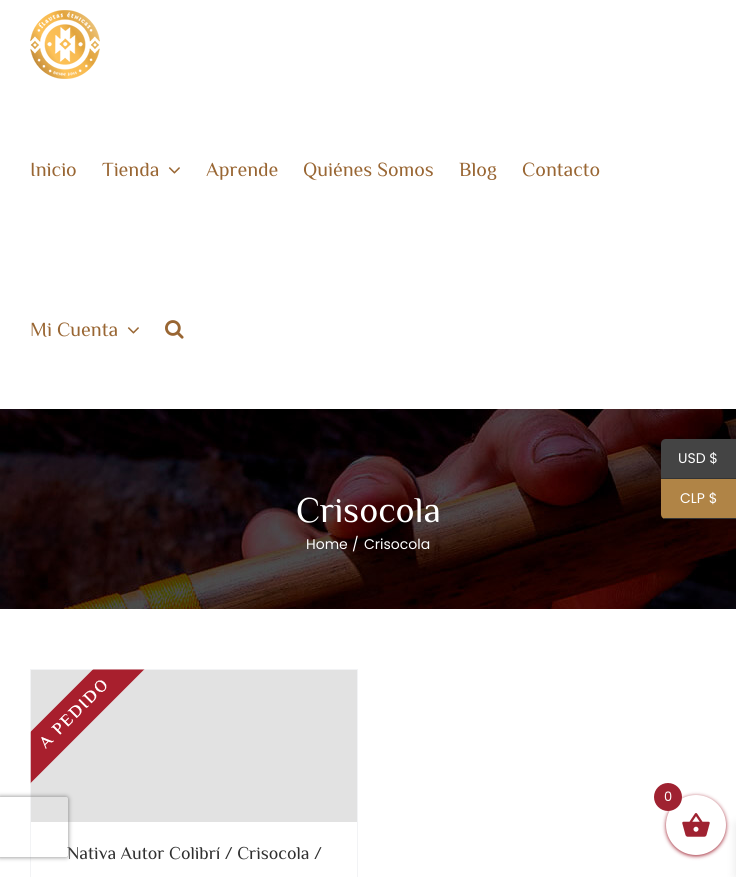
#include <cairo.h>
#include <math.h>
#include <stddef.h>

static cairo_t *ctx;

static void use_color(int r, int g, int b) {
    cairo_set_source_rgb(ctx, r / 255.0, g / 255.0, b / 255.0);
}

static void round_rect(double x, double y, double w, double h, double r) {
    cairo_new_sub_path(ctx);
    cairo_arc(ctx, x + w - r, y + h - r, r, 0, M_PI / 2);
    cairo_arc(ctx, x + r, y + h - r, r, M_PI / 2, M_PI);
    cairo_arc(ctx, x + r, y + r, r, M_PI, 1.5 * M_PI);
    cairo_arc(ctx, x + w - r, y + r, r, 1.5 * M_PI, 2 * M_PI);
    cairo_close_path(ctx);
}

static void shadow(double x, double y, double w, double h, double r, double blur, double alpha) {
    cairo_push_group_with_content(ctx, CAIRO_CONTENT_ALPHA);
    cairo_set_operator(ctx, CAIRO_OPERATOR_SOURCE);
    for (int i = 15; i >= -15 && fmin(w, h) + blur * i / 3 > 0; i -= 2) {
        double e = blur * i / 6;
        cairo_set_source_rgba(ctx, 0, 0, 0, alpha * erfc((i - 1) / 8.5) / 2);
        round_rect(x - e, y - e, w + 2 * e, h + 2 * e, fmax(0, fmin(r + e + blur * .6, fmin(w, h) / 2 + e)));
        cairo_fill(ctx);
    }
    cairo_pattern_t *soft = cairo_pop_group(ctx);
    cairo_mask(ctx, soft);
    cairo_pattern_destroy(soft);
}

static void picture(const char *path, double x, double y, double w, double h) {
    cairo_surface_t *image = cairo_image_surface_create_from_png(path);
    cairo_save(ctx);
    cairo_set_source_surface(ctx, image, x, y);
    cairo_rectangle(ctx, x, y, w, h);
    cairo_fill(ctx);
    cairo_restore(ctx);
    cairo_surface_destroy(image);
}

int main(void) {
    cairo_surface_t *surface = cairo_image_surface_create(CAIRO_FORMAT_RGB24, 736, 877);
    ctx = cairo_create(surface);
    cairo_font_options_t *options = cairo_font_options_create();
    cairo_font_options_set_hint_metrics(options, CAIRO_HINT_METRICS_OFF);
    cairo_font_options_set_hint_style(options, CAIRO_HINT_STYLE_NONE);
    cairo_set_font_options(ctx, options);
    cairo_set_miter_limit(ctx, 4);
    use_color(255, 255, 255);
    cairo_paint(ctx);
    picture("img1.png", 30, 10, 70, 69);
    cairo_select_font_face(ctx, "Philosopher", CAIRO_FONT_SLANT_NORMAL, CAIRO_FONT_WEIGHT_NORMAL);
    cairo_set_font_size(ctx, 20);
    use_color(153, 102, 51);
    cairo_move_to(ctx, 30, 176);
    cairo_show_text(ctx, "Inicio");
    cairo_move_to(ctx, 102, 176);
    cairo_show_text(ctx, "Tienda");
    picture("img2.png", 168, 167, 12, 7);
    cairo_move_to(ctx, 206, 176);
    cairo_show_text(ctx, "Aprende");
    cairo_move_to(ctx, 303, 176);
    cairo_show_text(ctx, "Quiénes Somos");
    cairo_move_to(ctx, 459, 176);
    cairo_show_text(ctx, "Blog");
    cairo_move_to(ctx, 522, 176);
    cairo_show_text(ctx, "Contacto");
    cairo_move_to(ctx, 30, 336);
    cairo_show_text(ctx, "Mi Cuenta");
    picture("img2.png", 127, 327, 12, 7);
    picture("img3.png", 165, 320, 19, 19);
    picture("img4.png", 0, 409, 736, 200);
    cairo_set_font_size(ctx, 36);
    use_color(255, 255, 255);
    cairo_move_to(ctx, 296, 522);
    cairo_show_text(ctx, "Crisocola");
    cairo_select_font_face(ctx, "Poppins", CAIRO_FONT_SLANT_NORMAL, CAIRO_FONT_WEIGHT_NORMAL);
    cairo_set_font_size(ctx, 14);
    cairo_move_to(ctx, 306, 549);
    cairo_show_text(ctx, "Home");
    cairo_move_to(ctx, 352, 549);
    cairo_show_text(ctx, "/");
    cairo_move_to(ctx, 364, 549);
    cairo_show_text(ctx, "Crisocola");
    use_color(242, 243, 245);
    cairo_rectangle(ctx, 30, 669, 328, 1);
    cairo_fill(ctx);
    cairo_rectangle(ctx, 30, 669, 1, 208);
    cairo_fill(ctx);
    use_color(226, 226, 226);
    cairo_rectangle(ctx, 31, 670, 326, 152);
    cairo_fill(ctx);
    picture("img5.png", 30, 669, 115, 115);
    use_color(242, 243, 245);
    cairo_rectangle(ctx, 357, 669, 1, 208);
    cairo_fill(ctx);
    cairo_select_font_face(ctx, "Philosopher", CAIRO_FONT_SLANT_NORMAL, CAIRO_FONT_WEIGHT_NORMAL);
    cairo_set_font_size(ctx, 18);
    use_color(48, 48, 48);
    cairo_move_to(ctx, 67, 859);
    cairo_show_text(ctx, "Nativa Autor Colibrí / Crisocola /");
    use_color(68, 68, 68);
    cairo_new_path(ctx);
    cairo_move_to(ctx, 666, 439);
    cairo_line_to(ctx, 736, 439);
    cairo_line_to(ctx, 736, 479);
    cairo_line_to(ctx, 661, 479);
    cairo_line_to(ctx, 661, 444);
    cairo_curve_to(ctx, 661, 441, 663, 439, 666, 439);
    cairo_close_path(ctx);
    cairo_fill(ctx);
    use_color(51, 51, 51);
    cairo_rectangle(ctx, 661, 478, 75, 1);
    cairo_fill(ctx);
    cairo_select_font_face(ctx, "Poppins", CAIRO_FONT_SLANT_NORMAL, CAIRO_FONT_WEIGHT_NORMAL);
    cairo_set_font_size(ctx, 14);
    use_color(255, 255, 255);
    cairo_move_to(ctx, 678, 463);
    cairo_show_text(ctx, "USD $");
    use_color(176, 132, 70);
    cairo_new_path(ctx);
    cairo_move_to(ctx, 661, 479);
    cairo_line_to(ctx, 736, 479);
    cairo_line_to(ctx, 736, 519);
    cairo_line_to(ctx, 666, 519);
    cairo_curve_to(ctx, 663, 519, 661, 517, 661, 514);
    cairo_close_path(ctx);
    cairo_fill(ctx);
    use_color(51, 51, 51);
    cairo_rectangle(ctx, 664, 518, 72, 1);
    cairo_fill(ctx);
    use_color(255, 255, 255);
    cairo_move_to(ctx, 680, 503);
    cairo_show_text(ctx, "CLP $");
    use_color(159, 34, 49);
    shadow(666, 796, 60, 60, 30, 2, 1);
    use_color(0, 0, 0);
    shadow(736, 824, 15, 52, 0, 5, 0.1);
    use_color(255, 255, 255);
    cairo_arc(ctx, 696, 825, 30, 0, 2 * M_PI);
    cairo_fill(ctx);
    use_color(159, 34, 49);
    cairo_arc(ctx, 668, 797, 14, 0, 2 * M_PI);
    cairo_fill(ctx);
    cairo_set_font_size(ctx, 13);
    use_color(255, 255, 255);
    cairo_move_to(ctx, 664, 801);
    cairo_show_text(ctx, "0");
    picture("img6.png", 682, 813, 28, 24);
    cairo_save(ctx);
    cairo_set_fill_rule(ctx, CAIRO_FILL_RULE_EVEN_ODD);
    cairo_new_path(ctx);
    cairo_move_to(ctx, 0, 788);
    cairo_line_to(ctx, 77, 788);
    cairo_line_to(ctx, 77, 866);
    cairo_line_to(ctx, 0, 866);
    cairo_close_path(ctx);
    cairo_move_to(ctx, 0, 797);
    cairo_line_to(ctx, 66, 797);
    cairo_curve_to(ctx, 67, 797, 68, 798, 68, 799);
    cairo_line_to(ctx, 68, 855);
    cairo_curve_to(ctx, 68, 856, 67, 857, 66, 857);
    cairo_line_to(ctx, 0, 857);
    cairo_curve_to(ctx, -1, 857, -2, 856, -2, 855);
    cairo_line_to(ctx, -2, 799);
    cairo_curve_to(ctx, -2, 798, -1, 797, 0, 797);
    cairo_close_path(ctx);
    cairo_clip(ctx);
    use_color(128, 128, 128);
    shadow(-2, 797, 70, 60, 2, 2.5, 1);
    cairo_restore(ctx);
    cairo_surface_write_to_png(surface, "result.png");
    cairo_font_options_destroy(options);
    cairo_destroy(ctx);
    cairo_surface_destroy(surface);
    return 0;
}
